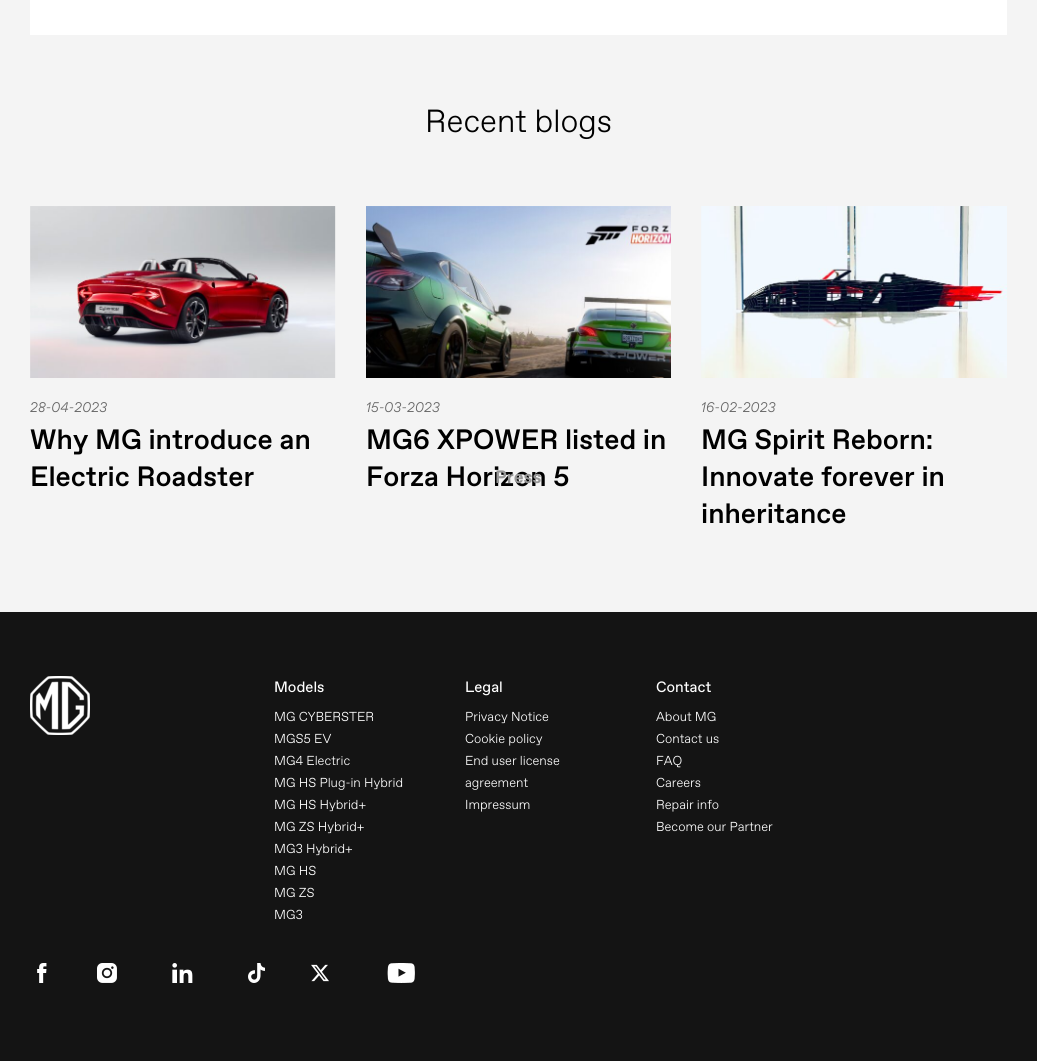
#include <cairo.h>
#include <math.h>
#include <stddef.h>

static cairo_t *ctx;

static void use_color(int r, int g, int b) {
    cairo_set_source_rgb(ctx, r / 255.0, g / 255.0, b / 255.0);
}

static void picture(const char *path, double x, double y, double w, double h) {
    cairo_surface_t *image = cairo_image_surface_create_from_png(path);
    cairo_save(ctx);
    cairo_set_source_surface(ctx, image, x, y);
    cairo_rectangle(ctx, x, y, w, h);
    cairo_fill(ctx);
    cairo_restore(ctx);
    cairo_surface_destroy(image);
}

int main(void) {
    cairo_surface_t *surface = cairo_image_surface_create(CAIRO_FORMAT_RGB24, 1037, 1061);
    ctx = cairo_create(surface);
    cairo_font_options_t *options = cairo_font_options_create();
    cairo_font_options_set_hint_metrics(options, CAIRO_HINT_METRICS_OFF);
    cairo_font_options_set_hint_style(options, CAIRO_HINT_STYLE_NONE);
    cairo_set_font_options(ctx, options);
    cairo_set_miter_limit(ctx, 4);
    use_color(244, 244, 244);
    cairo_paint(ctx);
    use_color(255, 255, 255);
    cairo_rectangle(ctx, 30, 0, 977, 35);
    cairo_fill(ctx);
    cairo_select_font_face(ctx, "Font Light", CAIRO_FONT_SLANT_NORMAL, CAIRO_FONT_WEIGHT_NORMAL);
    cairo_set_font_size(ctx, 32);
    use_color(0, 0, 0);
    cairo_move_to(ctx, 425, 132);
    cairo_show_text(ctx, "Recent blogs");
    picture("img1.png", 30, 206, 306, 172);
    cairo_select_font_face(ctx, "Font Light", CAIRO_FONT_SLANT_ITALIC, CAIRO_FONT_WEIGHT_NORMAL);
    cairo_set_font_size(ctx, 14);
    use_color(102, 102, 102);
    cairo_move_to(ctx, 30, 412);
    cairo_show_text(ctx, "28-04-2023");
    cairo_select_font_face(ctx, "Font Medium", CAIRO_FONT_SLANT_NORMAL, CAIRO_FONT_WEIGHT_NORMAL);
    cairo_set_font_size(ctx, 28);
    use_color(0, 0, 0);
    cairo_move_to(ctx, 30, 449);
    cairo_show_text(ctx, "Why MG introduce an");
    cairo_move_to(ctx, 30, 486);
    cairo_show_text(ctx, "Electric Roadster");
    picture("img2.png", 366, 206, 305, 172);
    cairo_select_font_face(ctx, "Font Light", CAIRO_FONT_SLANT_ITALIC, CAIRO_FONT_WEIGHT_NORMAL);
    cairo_set_font_size(ctx, 14);
    use_color(102, 102, 102);
    cairo_move_to(ctx, 366, 412);
    cairo_show_text(ctx, "15-03-2023");
    cairo_select_font_face(ctx, "Font Medium", CAIRO_FONT_SLANT_NORMAL, CAIRO_FONT_WEIGHT_NORMAL);
    cairo_set_font_size(ctx, 28);
    use_color(0, 0, 0);
    cairo_move_to(ctx, 366, 449);
    cairo_show_text(ctx, "MG6 XPOWER listed in");
    cairo_move_to(ctx, 366, 486);
    cairo_show_text(ctx, "Forza Horizon 5");
    picture("img3.png", 701, 206, 306, 172);
    cairo_select_font_face(ctx, "Font Light", CAIRO_FONT_SLANT_ITALIC, CAIRO_FONT_WEIGHT_NORMAL);
    cairo_set_font_size(ctx, 14);
    use_color(102, 102, 102);
    cairo_move_to(ctx, 701, 412);
    cairo_show_text(ctx, "16-02-2023");
    cairo_select_font_face(ctx, "Font Medium", CAIRO_FONT_SLANT_NORMAL, CAIRO_FONT_WEIGHT_NORMAL);
    cairo_set_font_size(ctx, 28);
    use_color(0, 0, 0);
    cairo_move_to(ctx, 701, 449);
    cairo_show_text(ctx, "MG Spirit Reborn:");
    cairo_move_to(ctx, 701, 486);
    cairo_show_text(ctx, "Innovate forever in");
    cairo_move_to(ctx, 701, 523);
    cairo_show_text(ctx, "inheritance");
    cairo_select_font_face(ctx, "Font", CAIRO_FONT_SLANT_NORMAL, CAIRO_FONT_WEIGHT_BOLD);
    cairo_set_font_size(ctx, 18);
    use_color(151, 151, 151);
    cairo_move_to(ctx, 495, 483);
    cairo_show_text(ctx, "Press");
    use_color(20, 20, 20);
    cairo_rectangle(ctx, 0, 612, 1037, 449);
    cairo_fill(ctx);
    picture("img4.png", 30, 676, 60, 59);
    cairo_select_font_face(ctx, "Font", CAIRO_FONT_SLANT_NORMAL, CAIRO_FONT_WEIGHT_NORMAL);
    cairo_set_font_size(ctx, 15);
    use_color(255, 255, 255);
    cairo_move_to(ctx, 274, 692);
    cairo_show_text(ctx, "Models");
    cairo_select_font_face(ctx, "Font Light", CAIRO_FONT_SLANT_NORMAL, CAIRO_FONT_WEIGHT_NORMAL);
    cairo_set_font_size(ctx, 13);
    cairo_move_to(ctx, 274, 721);
    cairo_show_text(ctx, "MG CYBERSTER");
    cairo_move_to(ctx, 274, 743);
    cairo_show_text(ctx, "MGS5 EV");
    cairo_move_to(ctx, 274, 765);
    cairo_show_text(ctx, "MG4 Electric");
    cairo_move_to(ctx, 274, 787);
    cairo_show_text(ctx, "MG HS Plug-in Hybrid");
    cairo_move_to(ctx, 274, 809);
    cairo_show_text(ctx, "MG HS Hybrid+");
    cairo_move_to(ctx, 274, 831);
    cairo_show_text(ctx, "MG ZS Hybrid+");
    cairo_move_to(ctx, 274, 853);
    cairo_show_text(ctx, "MG3 Hybrid+");
    cairo_move_to(ctx, 274, 875);
    cairo_show_text(ctx, "MG HS");
    cairo_move_to(ctx, 274, 897);
    cairo_show_text(ctx, "MG ZS");
    cairo_move_to(ctx, 274, 919);
    cairo_show_text(ctx, "MG3");
    cairo_select_font_face(ctx, "Font", CAIRO_FONT_SLANT_NORMAL, CAIRO_FONT_WEIGHT_NORMAL);
    cairo_set_font_size(ctx, 15);
    cairo_move_to(ctx, 465, 692);
    cairo_show_text(ctx, "Legal");
    cairo_select_font_face(ctx, "Font Light", CAIRO_FONT_SLANT_NORMAL, CAIRO_FONT_WEIGHT_NORMAL);
    cairo_set_font_size(ctx, 13);
    cairo_move_to(ctx, 465, 721);
    cairo_show_text(ctx, "Privacy Notice");
    cairo_move_to(ctx, 465, 743);
    cairo_show_text(ctx, "Cookie policy");
    cairo_move_to(ctx, 465, 765);
    cairo_show_text(ctx, "End user license");
    cairo_move_to(ctx, 465, 787);
    cairo_show_text(ctx, "agreement");
    cairo_move_to(ctx, 465, 809);
    cairo_show_text(ctx, "Impressum");
    cairo_select_font_face(ctx, "Font", CAIRO_FONT_SLANT_NORMAL, CAIRO_FONT_WEIGHT_NORMAL);
    cairo_set_font_size(ctx, 15);
    cairo_move_to(ctx, 656, 692);
    cairo_show_text(ctx, "Contact");
    cairo_select_font_face(ctx, "Font Light", CAIRO_FONT_SLANT_NORMAL, CAIRO_FONT_WEIGHT_NORMAL);
    cairo_set_font_size(ctx, 13);
    cairo_move_to(ctx, 656, 721);
    cairo_show_text(ctx, "About MG");
    cairo_move_to(ctx, 656, 743);
    cairo_show_text(ctx, "Contact us");
    cairo_move_to(ctx, 656, 765);
    cairo_show_text(ctx, "FAQ");
    cairo_move_to(ctx, 656, 787);
    cairo_show_text(ctx, "Careers");
    cairo_move_to(ctx, 656, 809);
    cairo_show_text(ctx, "Repair info");
    cairo_move_to(ctx, 656, 831);
    cairo_show_text(ctx, "Become our Partner");
    picture("img5.png", 37, 963, 10, 20);
    picture("img6.png", 97, 963, 20, 20);
    picture("img7.png", 172, 963, 21, 20);
    picture("img8.png", 248, 963, 17, 20);
    picture("img9.png", 311, 964, 18, 18);
    picture("img10.png", 387, 963, 28, 20);
    cairo_surface_write_to_png(surface, "result.png");
    cairo_font_options_destroy(options);
    cairo_destroy(ctx);
    cairo_surface_destroy(surface);
    return 0;
}
